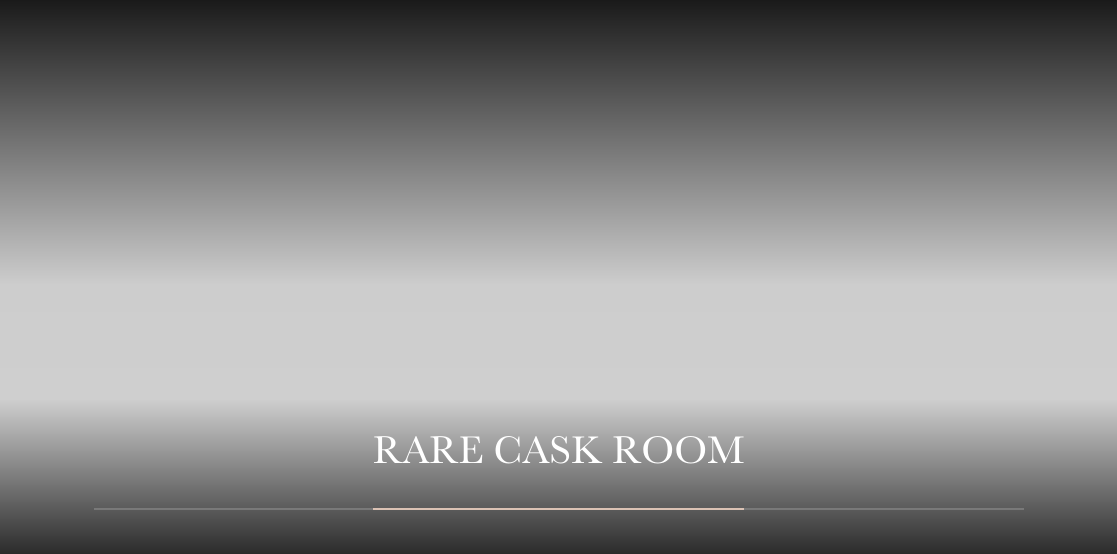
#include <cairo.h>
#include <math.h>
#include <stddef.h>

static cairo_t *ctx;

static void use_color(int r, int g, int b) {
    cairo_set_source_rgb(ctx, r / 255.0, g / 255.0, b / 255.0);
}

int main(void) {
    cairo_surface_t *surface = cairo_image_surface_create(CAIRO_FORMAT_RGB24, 1117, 554);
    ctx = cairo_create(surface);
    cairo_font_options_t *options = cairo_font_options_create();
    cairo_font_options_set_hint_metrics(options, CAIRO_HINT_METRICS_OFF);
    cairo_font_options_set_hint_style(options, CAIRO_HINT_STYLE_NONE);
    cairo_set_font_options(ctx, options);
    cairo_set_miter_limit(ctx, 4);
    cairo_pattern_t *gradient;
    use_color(255, 255, 255);
    cairo_paint(ctx);
    gradient = cairo_pattern_create_linear(559, 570, 559, 0);
    cairo_pattern_add_color_stop_rgba(gradient, 0, 0.102, 0.102, 0.102, 1);
    cairo_pattern_add_color_stop_rgba(gradient, 0.3, 0.812, 0.812, 0.812, 1);
    cairo_pattern_add_color_stop_rgba(gradient, 0.5, 0.804, 0.804, 0.804, 1);
    cairo_pattern_add_color_stop_rgba(gradient, 1, 0.102, 0.102, 0.102, 1);
    cairo_set_source(ctx, gradient);
    cairo_pattern_destroy(gradient);
    cairo_rectangle(ctx, 0, 0, 1117, 554);
    cairo_fill(ctx);
    gradient = cairo_pattern_create_linear(559, 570, 559, 0);
    cairo_pattern_add_color_stop_rgba(gradient, 0, 0.263, 0.263, 0.263, 1);
    cairo_pattern_add_color_stop_rgba(gradient, 0.3, 0.847, 0.847, 0.847, 1);
    cairo_pattern_add_color_stop_rgba(gradient, 0.5, 0.839, 0.839, 0.839, 1);
    cairo_pattern_add_color_stop_rgba(gradient, 1, 0.263, 0.263, 0.263, 1);
    cairo_set_source(ctx, gradient);
    cairo_pattern_destroy(gradient);
    cairo_rectangle(ctx, 94, 508, 930, 2);
    cairo_fill(ctx);
    cairo_select_font_face(ctx, "Baskerville", CAIRO_FONT_SLANT_NORMAL, CAIRO_FONT_WEIGHT_NORMAL);
    cairo_set_font_size(ctx, 40);
    use_color(255, 255, 255);
    cairo_move_to(ctx, 373, 463);
    cairo_show_text(ctx, "RARE CASK ROOM");
    use_color(219, 194, 180);
    cairo_rectangle(ctx, 373, 508, 371, 2);
    cairo_fill(ctx);
    cairo_surface_write_to_png(surface, "result.png");
    cairo_font_options_destroy(options);
    cairo_destroy(ctx);
    cairo_surface_destroy(surface);
    return 0;
}
